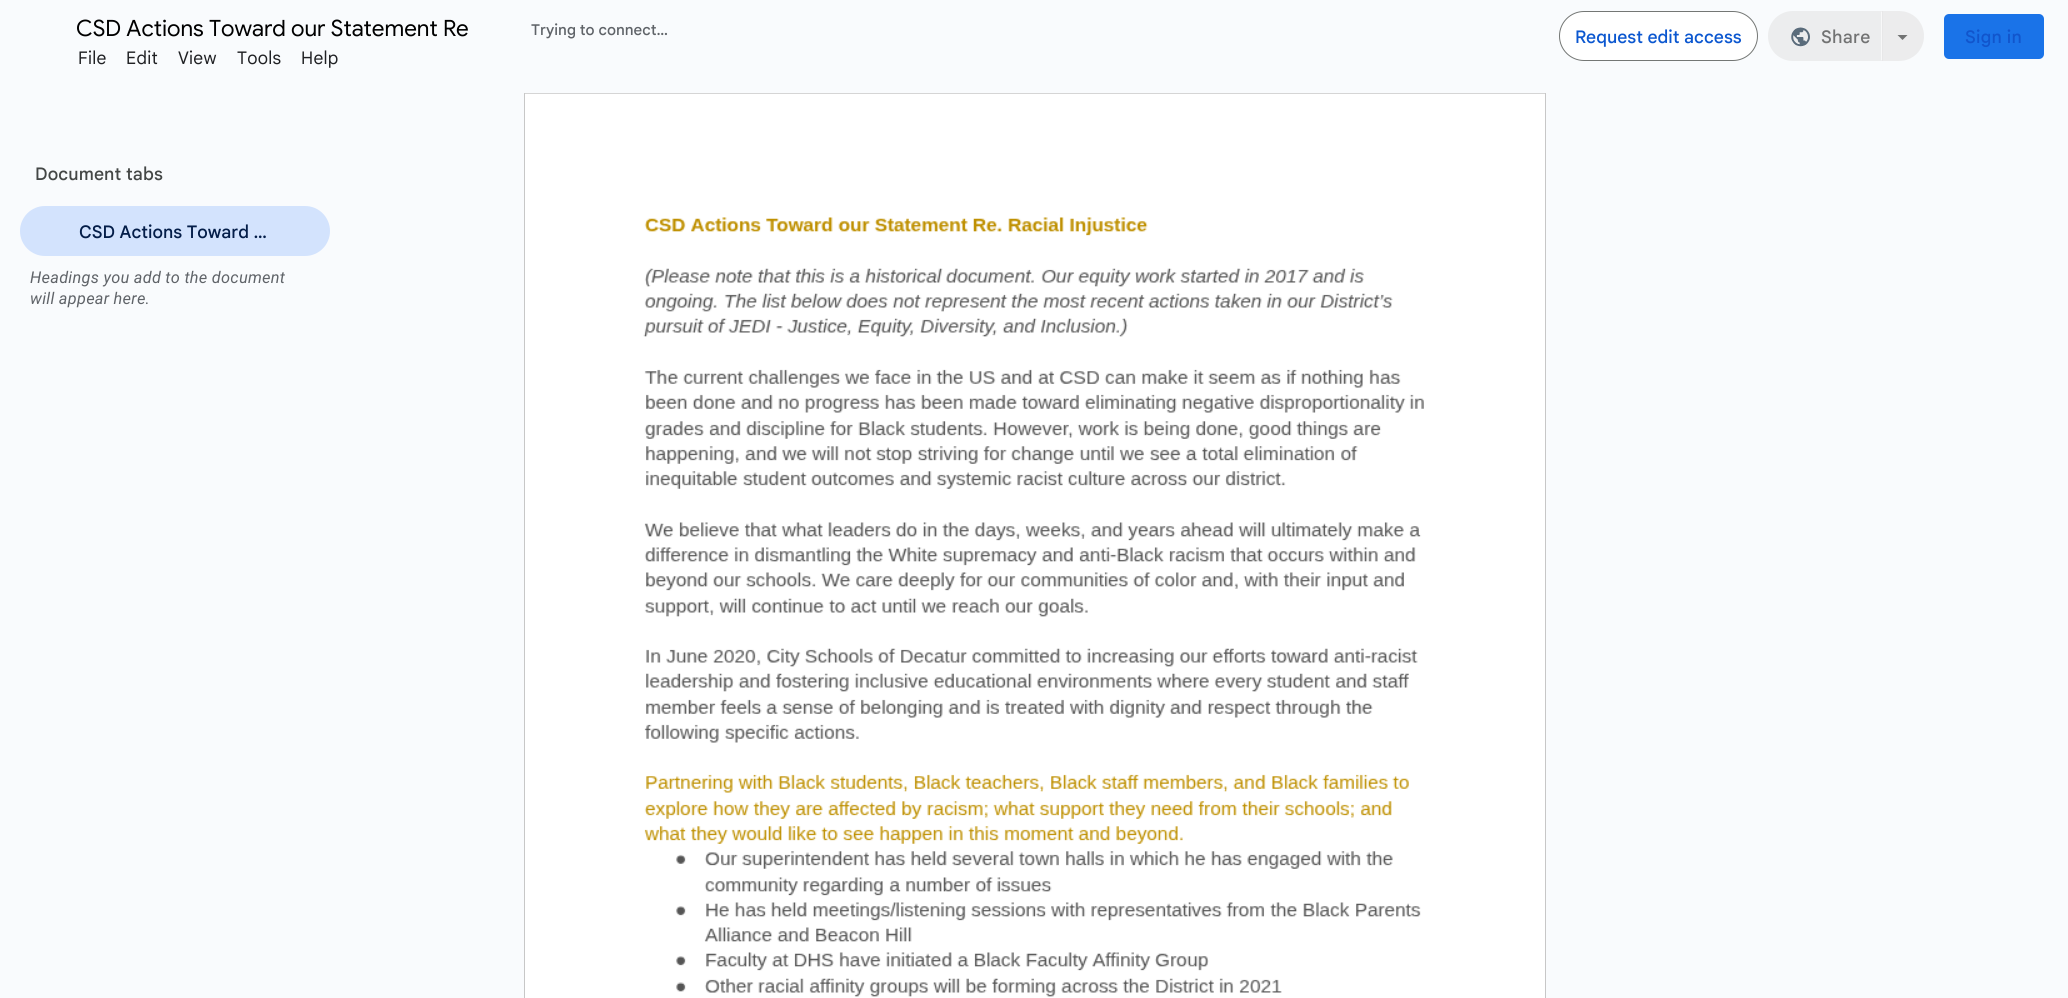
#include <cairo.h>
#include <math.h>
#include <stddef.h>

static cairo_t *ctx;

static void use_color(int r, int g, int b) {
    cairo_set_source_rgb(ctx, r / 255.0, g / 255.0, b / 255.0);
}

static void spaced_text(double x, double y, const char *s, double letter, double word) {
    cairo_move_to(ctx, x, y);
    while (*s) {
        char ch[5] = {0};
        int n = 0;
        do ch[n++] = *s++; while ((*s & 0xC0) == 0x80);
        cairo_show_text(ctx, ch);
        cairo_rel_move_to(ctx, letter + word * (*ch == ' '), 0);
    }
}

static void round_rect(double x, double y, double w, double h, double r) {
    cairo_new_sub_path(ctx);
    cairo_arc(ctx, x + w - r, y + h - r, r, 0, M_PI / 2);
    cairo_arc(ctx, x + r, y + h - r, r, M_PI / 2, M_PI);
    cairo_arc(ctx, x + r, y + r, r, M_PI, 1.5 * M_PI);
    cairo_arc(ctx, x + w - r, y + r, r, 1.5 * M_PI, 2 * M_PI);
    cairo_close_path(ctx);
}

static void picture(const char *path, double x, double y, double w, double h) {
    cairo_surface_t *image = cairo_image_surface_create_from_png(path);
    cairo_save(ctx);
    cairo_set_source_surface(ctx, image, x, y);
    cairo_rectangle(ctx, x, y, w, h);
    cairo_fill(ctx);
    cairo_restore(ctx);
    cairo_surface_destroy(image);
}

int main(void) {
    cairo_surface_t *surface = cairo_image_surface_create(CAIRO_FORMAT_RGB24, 2068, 998);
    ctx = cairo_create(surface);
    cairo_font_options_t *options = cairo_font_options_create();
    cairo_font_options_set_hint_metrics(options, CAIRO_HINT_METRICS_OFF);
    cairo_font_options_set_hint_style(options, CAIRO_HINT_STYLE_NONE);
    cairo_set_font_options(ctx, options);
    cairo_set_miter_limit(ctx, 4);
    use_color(249, 251, 253);
    cairo_paint(ctx);
    cairo_select_font_face(ctx, "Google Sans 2", CAIRO_FONT_SLANT_NORMAL, CAIRO_FONT_WEIGHT_NORMAL);
    cairo_set_font_size(ctx, 22.5);
    use_color(0, 0, 0);
    cairo_move_to(ctx, 76, 36);
    cairo_show_text(ctx, "CSD Actions Toward our Statement Re");
    cairo_select_font_face(ctx, "Google Sans Medium", CAIRO_FONT_SLANT_NORMAL, CAIRO_FONT_WEIGHT_NORMAL);
    cairo_set_font_size(ctx, 15);
    use_color(95, 99, 104);
    cairo_move_to(ctx, 531, 35);
    cairo_show_text(ctx, "Trying to connect…");
    use_color(255, 255, 255);
    round_rect(1559.5, 11.5, 198, 49, 24.5);
    cairo_fill_preserve(ctx);
    use_color(116, 119, 117);
    cairo_set_line_width(ctx, 1);
    cairo_stroke(ctx);
    cairo_set_font_size(ctx, 17.5);
    use_color(11, 87, 208);
    cairo_move_to(ctx, 1575, 43);
    cairo_show_text(ctx, "Request edit access");
    use_color(236, 237, 238);
    cairo_new_path(ctx);
    cairo_move_to(ctx, 1793, 11);
    cairo_line_to(ctx, 1883, 11);
    cairo_line_to(ctx, 1883, 61);
    cairo_line_to(ctx, 1793, 61);
    cairo_curve_to(ctx, 1779, 61, 1768, 50, 1768, 36);
    cairo_curve_to(ctx, 1768, 22, 1779, 11, 1793, 11);
    cairo_close_path(ctx);
    cairo_fill(ctx);
    picture("img1.png", 1791, 27, 19, 20);
    use_color(114, 115, 115);
    spaced_text(1821, 43, "Share", 0.25, 0);
    cairo_set_source_rgba(ctx, 0.894, 0.894, 0.894, 0.62);
    cairo_new_path(ctx);
    cairo_move_to(ctx, 1881, 11);
    cairo_line_to(ctx, 1899, 11);
    cairo_curve_to(ctx, 1913, 11, 1924, 22, 1924, 36);
    cairo_curve_to(ctx, 1924, 50, 1913, 61, 1899, 61);
    cairo_line_to(ctx, 1881, 61);
    cairo_close_path(ctx);
    cairo_fill(ctx);
    use_color(248, 248, 249);
    cairo_new_path(ctx);
    cairo_move_to(ctx, 1882, 12);
    cairo_line_to(ctx, 1882, 60);
    cairo_line_to(ctx, 1881, 61);
    cairo_line_to(ctx, 1881, 11);
    cairo_close_path(ctx);
    cairo_fill(ctx);
    use_color(114, 115, 115);
    cairo_new_path(ctx);
    cairo_move_to(ctx, 1897.5, 35);
    cairo_line_to(ctx, 1907.5, 35);
    cairo_line_to(ctx, 1902.5, 40);
    cairo_close_path(ctx);
    cairo_fill(ctx);
    use_color(26, 115, 232);
    round_rect(1944, 14, 100, 45, 5);
    cairo_fill(ctx);
    use_color(17, 85, 204);
    spaced_text(1965, 43, "Sign in", 0.25, 0);
    cairo_select_font_face(ctx, "Google Sans", CAIRO_FONT_SLANT_NORMAL, CAIRO_FONT_WEIGHT_NORMAL);
    use_color(32, 33, 36);
    spaced_text(78, 64, "File", 0.25, 0);
    spaced_text(126, 64, "Edit", 0.25, 0);
    spaced_text(178, 64, "View", 0.25, 0);
    spaced_text(237, 64, "Tools", 0.25, 0);
    spaced_text(301, 64, "Help", 0.25, 0);
    cairo_select_font_face(ctx, "Google Sans Medium", CAIRO_FONT_SLANT_NORMAL, CAIRO_FONT_WEIGHT_NORMAL);
    use_color(68, 71, 70);
    spaced_text(35, 180, "Document tabs", 0.1, 0);
    use_color(211, 227, 253);
    round_rect(20, 206, 310, 50, 25);
    cairo_fill(ctx);
    use_color(4, 30, 73);
    cairo_move_to(ctx, 79, 238);
    cairo_show_text(ctx, "CSD Actions Toward …");
    cairo_select_font_face(ctx, "Roboto", CAIRO_FONT_SLANT_ITALIC, CAIRO_FONT_WEIGHT_NORMAL);
    cairo_set_font_size(ctx, 16.25);
    use_color(95, 99, 104);
    spaced_text(30, 283, "Headings you add to the document", 0.25, 0);
    spaced_text(30, 304, "will appear here.", 0.25, 0);
    cairo_rectangle(ctx, 524.5, 93.5, 1021, 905);
    use_color(199, 199, 199);
    cairo_stroke(ctx);
    picture("img2.png", 525, 93, 1020, 905);
    cairo_surface_write_to_png(surface, "result.png");
    cairo_font_options_destroy(options);
    cairo_destroy(ctx);
    cairo_surface_destroy(surface);
    return 0;
}
